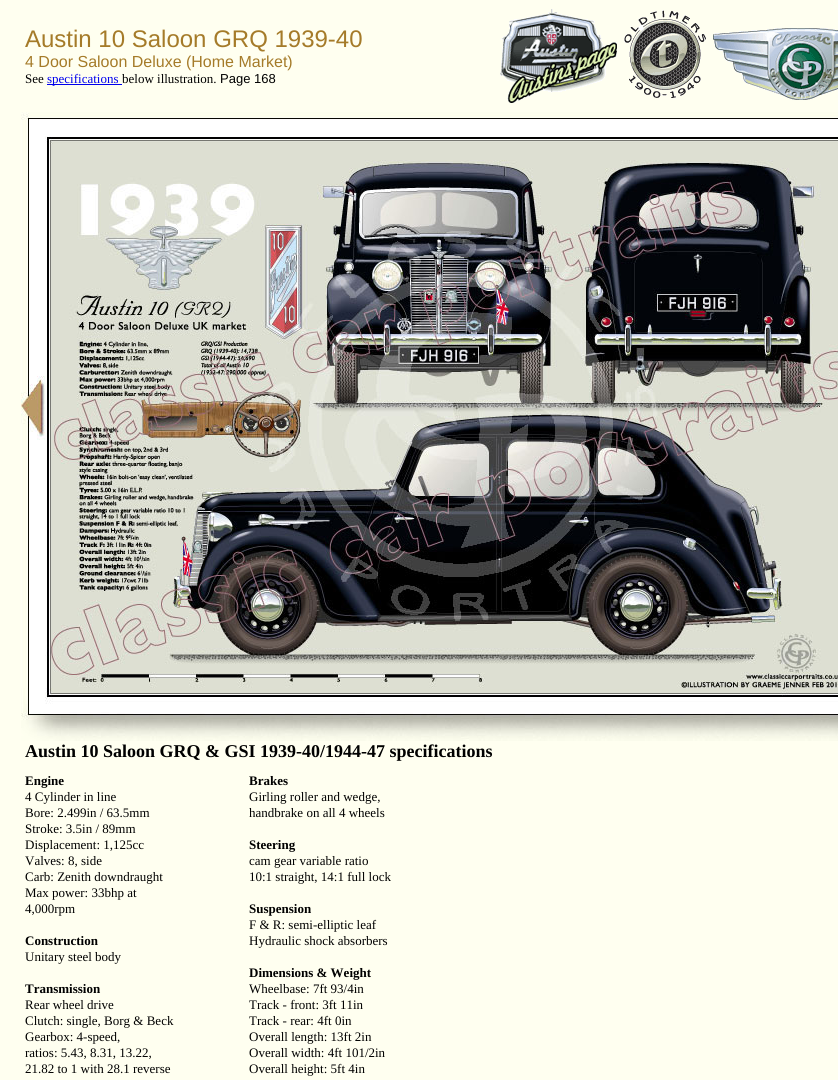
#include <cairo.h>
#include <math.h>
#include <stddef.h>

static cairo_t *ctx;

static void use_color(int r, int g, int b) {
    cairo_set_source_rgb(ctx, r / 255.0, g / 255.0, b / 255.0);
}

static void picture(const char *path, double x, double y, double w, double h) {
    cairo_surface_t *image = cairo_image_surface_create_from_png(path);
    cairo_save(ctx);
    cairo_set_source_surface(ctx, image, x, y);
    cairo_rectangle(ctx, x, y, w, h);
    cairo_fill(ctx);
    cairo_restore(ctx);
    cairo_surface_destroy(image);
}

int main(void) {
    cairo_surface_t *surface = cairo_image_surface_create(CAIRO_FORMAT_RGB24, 838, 1080);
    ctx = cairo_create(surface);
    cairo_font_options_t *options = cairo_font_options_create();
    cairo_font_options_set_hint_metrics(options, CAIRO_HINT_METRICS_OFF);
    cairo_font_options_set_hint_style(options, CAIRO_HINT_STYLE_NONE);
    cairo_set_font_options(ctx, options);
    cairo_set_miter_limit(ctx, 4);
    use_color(255, 255, 240);
    cairo_paint(ctx);
    cairo_select_font_face(ctx, "Liberation Sans", CAIRO_FONT_SLANT_NORMAL, CAIRO_FONT_WEIGHT_NORMAL);
    cairo_set_font_size(ctx, 24);
    use_color(165, 123, 41);
    cairo_move_to(ctx, 25, 47);
    cairo_show_text(ctx, "Austin 10 Saloon GRQ 1939-40");
    cairo_set_font_size(ctx, 16);
    cairo_move_to(ctx, 25, 67);
    cairo_show_text(ctx, "4 Door Saloon Deluxe (Home Market)");
    cairo_select_font_face(ctx, "Liberation Serif", CAIRO_FONT_SLANT_NORMAL, CAIRO_FONT_WEIGHT_NORMAL);
    cairo_set_font_size(ctx, 13);
    use_color(0, 0, 0);
    cairo_move_to(ctx, 25, 83);
    cairo_show_text(ctx, "See");
    use_color(0, 0, 238);
    cairo_rectangle(ctx, 47, 84, 75, 1);
    cairo_fill(ctx);
    cairo_move_to(ctx, 47, 83);
    cairo_show_text(ctx, "specifications");
    use_color(0, 0, 0);
    cairo_move_to(ctx, 122, 83);
    cairo_show_text(ctx, "below illustration.");
    cairo_select_font_face(ctx, "Liberation Sans", CAIRO_FONT_SLANT_NORMAL, CAIRO_FONT_WEIGHT_NORMAL);
    cairo_move_to(ctx, 220, 83);
    cairo_show_text(ctx, "Page 168");
    picture("img1.png", 713, 28, 125, 72);
    picture("img2.png", 500, 9, 117, 94);
    picture("img3.png", 624, 10, 82, 88);
    picture("img4.png", 21, 112, 817, 629);
    cairo_select_font_face(ctx, "Liberation Serif", CAIRO_FONT_SLANT_NORMAL, CAIRO_FONT_WEIGHT_BOLD);
    cairo_set_font_size(ctx, 18);
    cairo_move_to(ctx, 25, 757);
    cairo_show_text(ctx, "Austin 10 Saloon GRQ & GSI 1939-40/1944-47 specifications");
    cairo_set_font_size(ctx, 13);
    cairo_move_to(ctx, 25, 785);
    cairo_show_text(ctx, "Engine");
    cairo_select_font_face(ctx, "Liberation Serif", CAIRO_FONT_SLANT_NORMAL, CAIRO_FONT_WEIGHT_NORMAL);
    cairo_move_to(ctx, 25, 801);
    cairo_show_text(ctx, "4 Cylinder in line");
    cairo_move_to(ctx, 25, 817);
    cairo_show_text(ctx, "Bore: 2.499in / 63.5mm");
    cairo_move_to(ctx, 25, 833);
    cairo_show_text(ctx, "Stroke: 3.5in / 89mm");
    cairo_move_to(ctx, 25, 849);
    cairo_show_text(ctx, "Displacement: 1,125cc");
    cairo_move_to(ctx, 25, 865);
    cairo_show_text(ctx, "Valves: 8, side");
    cairo_move_to(ctx, 25, 881);
    cairo_show_text(ctx, "Carb: Zenith downdraught");
    cairo_move_to(ctx, 25, 897);
    cairo_show_text(ctx, "Max power: 33bhp at");
    cairo_move_to(ctx, 25, 913);
    cairo_show_text(ctx, "4,000rpm");
    cairo_select_font_face(ctx, "Liberation Serif", CAIRO_FONT_SLANT_NORMAL, CAIRO_FONT_WEIGHT_BOLD);
    cairo_move_to(ctx, 25, 945);
    cairo_show_text(ctx, "Construction");
    cairo_select_font_face(ctx, "Liberation Serif", CAIRO_FONT_SLANT_NORMAL, CAIRO_FONT_WEIGHT_NORMAL);
    cairo_move_to(ctx, 25, 961);
    cairo_show_text(ctx, "Unitary steel body");
    cairo_select_font_face(ctx, "Liberation Serif", CAIRO_FONT_SLANT_NORMAL, CAIRO_FONT_WEIGHT_BOLD);
    cairo_move_to(ctx, 25, 993);
    cairo_show_text(ctx, "Transmission");
    cairo_select_font_face(ctx, "Liberation Serif", CAIRO_FONT_SLANT_NORMAL, CAIRO_FONT_WEIGHT_NORMAL);
    cairo_move_to(ctx, 25, 1009);
    cairo_show_text(ctx, "Rear wheel drive");
    cairo_move_to(ctx, 25, 1025);
    cairo_show_text(ctx, "Clutch: single, Borg & Beck");
    cairo_move_to(ctx, 25, 1041);
    cairo_show_text(ctx, "Gearbox: 4-speed,");
    cairo_move_to(ctx, 25, 1057);
    cairo_show_text(ctx, "ratios: 5.43, 8.31, 13.22,");
    cairo_move_to(ctx, 25, 1073);
    cairo_show_text(ctx, "21.82 to 1 with 28.1 reverse");
    cairo_select_font_face(ctx, "Liberation Serif", CAIRO_FONT_SLANT_NORMAL, CAIRO_FONT_WEIGHT_BOLD);
    cairo_move_to(ctx, 249, 785);
    cairo_show_text(ctx, "Brakes");
    cairo_select_font_face(ctx, "Liberation Serif", CAIRO_FONT_SLANT_NORMAL, CAIRO_FONT_WEIGHT_NORMAL);
    cairo_move_to(ctx, 249, 801);
    cairo_show_text(ctx, "Girling roller and wedge,");
    cairo_move_to(ctx, 249, 817);
    cairo_show_text(ctx, "handbrake on all 4 wheels");
    cairo_select_font_face(ctx, "Liberation Serif", CAIRO_FONT_SLANT_NORMAL, CAIRO_FONT_WEIGHT_BOLD);
    cairo_move_to(ctx, 249, 849);
    cairo_show_text(ctx, "Steering");
    cairo_select_font_face(ctx, "Liberation Serif", CAIRO_FONT_SLANT_NORMAL, CAIRO_FONT_WEIGHT_NORMAL);
    cairo_move_to(ctx, 249, 865);
    cairo_show_text(ctx, "cam gear variable ratio");
    cairo_move_to(ctx, 249, 881);
    cairo_show_text(ctx, "10:1 straight, 14:1 full lock");
    cairo_select_font_face(ctx, "Liberation Serif", CAIRO_FONT_SLANT_NORMAL, CAIRO_FONT_WEIGHT_BOLD);
    cairo_move_to(ctx, 249, 913);
    cairo_show_text(ctx, "Suspension");
    cairo_select_font_face(ctx, "Liberation Serif", CAIRO_FONT_SLANT_NORMAL, CAIRO_FONT_WEIGHT_NORMAL);
    cairo_move_to(ctx, 249, 929);
    cairo_show_text(ctx, "F & R: semi-elliptic leaf");
    cairo_move_to(ctx, 249, 945);
    cairo_show_text(ctx, "Hydraulic shock absorbers");
    cairo_select_font_face(ctx, "Liberation Serif", CAIRO_FONT_SLANT_NORMAL, CAIRO_FONT_WEIGHT_BOLD);
    cairo_move_to(ctx, 249, 977);
    cairo_show_text(ctx, "Dimensions & Weight");
    cairo_select_font_face(ctx, "Liberation Serif", CAIRO_FONT_SLANT_NORMAL, CAIRO_FONT_WEIGHT_NORMAL);
    cairo_move_to(ctx, 249, 993);
    cairo_show_text(ctx, "Wheelbase: 7ft 93/4in");
    cairo_move_to(ctx, 249, 1009);
    cairo_show_text(ctx, "Track - front: 3ft 11in");
    cairo_move_to(ctx, 249, 1025);
    cairo_show_text(ctx, "Track - rear: 4ft 0in");
    cairo_move_to(ctx, 249, 1041);
    cairo_show_text(ctx, "Overall length: 13ft 2in");
    cairo_move_to(ctx, 249, 1057);
    cairo_show_text(ctx, "Overall width: 4ft 101/2in");
    cairo_move_to(ctx, 249, 1073);
    cairo_show_text(ctx, "Overall height: 5ft 4in");
    cairo_surface_write_to_png(surface, "result.png");
    cairo_font_options_destroy(options);
    cairo_destroy(ctx);
    cairo_surface_destroy(surface);
    return 0;
}
